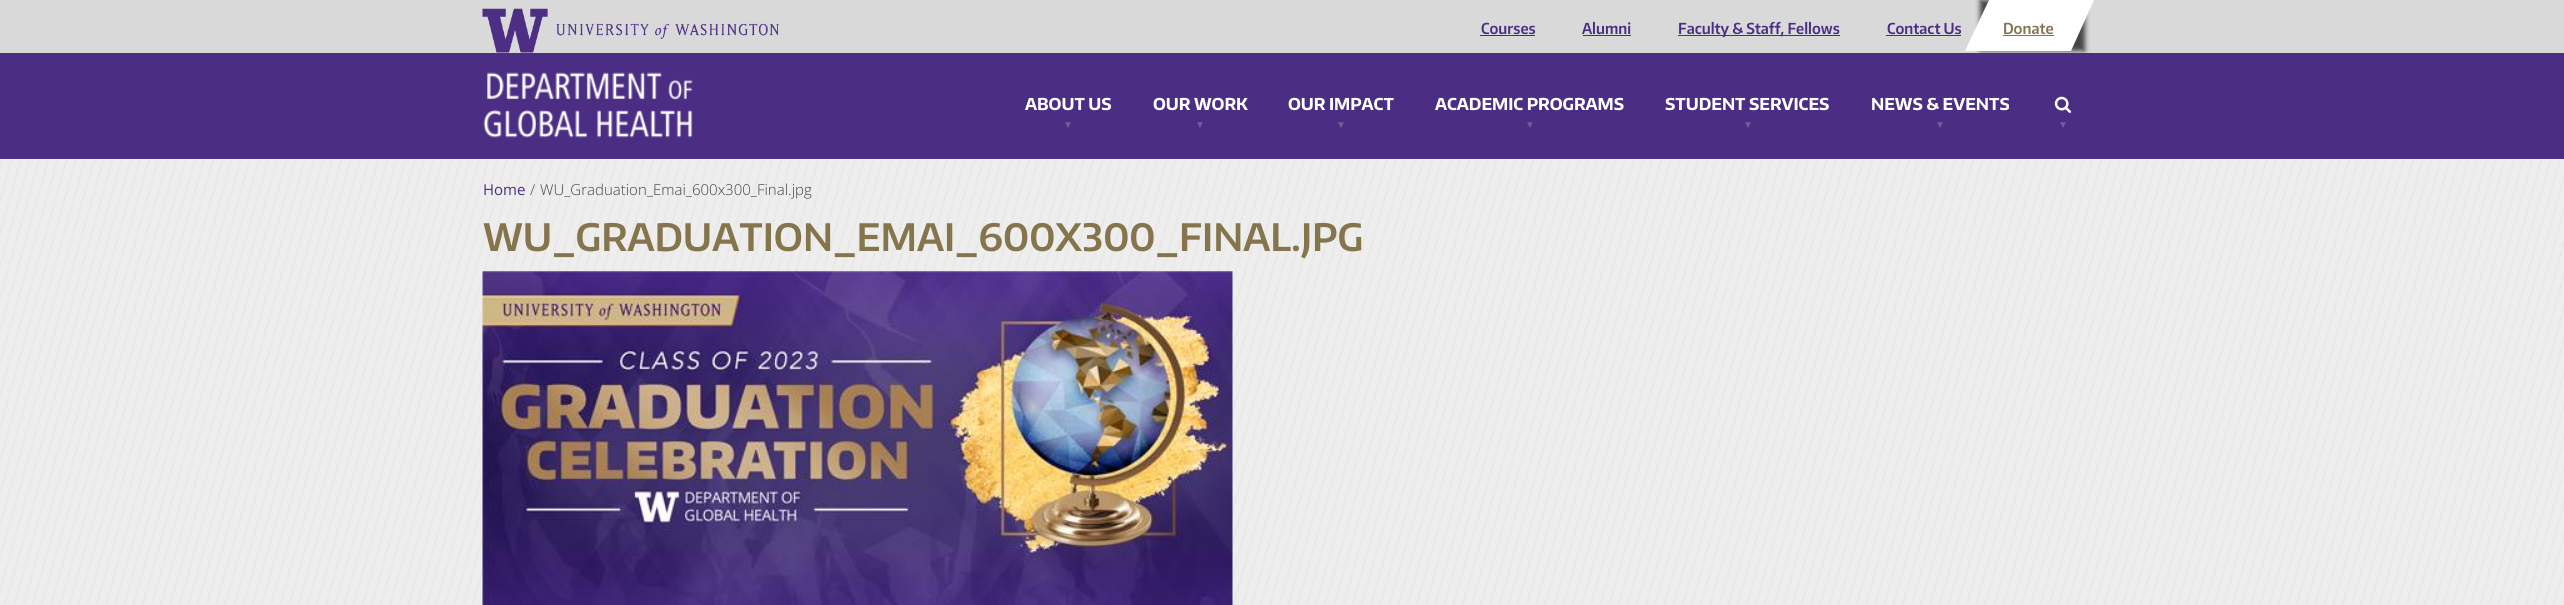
#include <cairo.h>
#include <math.h>
#include <stddef.h>

static cairo_t *ctx;

static void use_color(int r, int g, int b) {
    cairo_set_source_rgb(ctx, r / 255.0, g / 255.0, b / 255.0);
}

static void round_rect(double x, double y, double w, double h, double r) {
    cairo_new_sub_path(ctx);
    cairo_arc(ctx, x + w - r, y + h - r, r, 0, M_PI / 2);
    cairo_arc(ctx, x + r, y + h - r, r, M_PI / 2, M_PI);
    cairo_arc(ctx, x + r, y + r, r, M_PI, 1.5 * M_PI);
    cairo_arc(ctx, x + w - r, y + r, r, 1.5 * M_PI, 2 * M_PI);
    cairo_close_path(ctx);
}

static void shadow(double x, double y, double w, double h, double r, double blur, double alpha) {
    cairo_push_group_with_content(ctx, CAIRO_CONTENT_ALPHA);
    cairo_set_operator(ctx, CAIRO_OPERATOR_SOURCE);
    for (int i = 15; i >= -15 && fmin(w, h) + blur * i / 3 > 0; i -= 2) {
        double e = blur * i / 6;
        cairo_set_source_rgba(ctx, 0, 0, 0, alpha * erfc((i - 1) / 8.5) / 2);
        round_rect(x - e, y - e, w + 2 * e, h + 2 * e, fmax(0, fmin(r + e + blur * .6, fmin(w, h) / 2 + e)));
        cairo_fill(ctx);
    }
    cairo_pattern_t *soft = cairo_pop_group(ctx);
    cairo_mask(ctx, soft);
    cairo_pattern_destroy(soft);
}

static void picture(const char *path, double x, double y, double w, double h) {
    cairo_surface_t *image = cairo_image_surface_create_from_png(path);
    cairo_save(ctx);
    cairo_set_source_surface(ctx, image, x, y);
    cairo_rectangle(ctx, x, y, w, h);
    cairo_fill(ctx);
    cairo_restore(ctx);
    cairo_surface_destroy(image);
}

int main(void) {
    cairo_surface_t *surface = cairo_image_surface_create(CAIRO_FORMAT_RGB24, 2564, 605);
    ctx = cairo_create(surface);
    cairo_font_options_t *options = cairo_font_options_create();
    cairo_font_options_set_hint_metrics(options, CAIRO_HINT_METRICS_OFF);
    cairo_font_options_set_hint_style(options, CAIRO_HINT_STYLE_NONE);
    cairo_set_font_options(ctx, options);
    cairo_set_miter_limit(ctx, 4);
    use_color(255, 255, 255);
    cairo_paint(ctx);
    picture("img1.png", 0, 159, 2564, 446);
    use_color(217, 217, 217);
    cairo_rectangle(ctx, 0, 0, 2564, 53);
    cairo_fill(ctx);
    picture("img2.png", 482, 8, 297, 45);
    cairo_select_font_face(ctx, "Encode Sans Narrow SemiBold", CAIRO_FONT_SLANT_NORMAL, CAIRO_FONT_WEIGHT_NORMAL);
    cairo_set_font_size(ctx, 15);
    use_color(75, 46, 132);
    cairo_move_to(ctx, 1481, 34);
    cairo_show_text(ctx, "Courses");
    cairo_rectangle(ctx, 1480, 35, 55, 1);
    cairo_fill(ctx);
    cairo_move_to(ctx, 1582, 34);
    cairo_show_text(ctx, "Alumni");
    cairo_rectangle(ctx, 1583, 35, 48, 1);
    cairo_fill(ctx);
    cairo_rectangle(ctx, 1678, 35, 162, 1);
    cairo_fill(ctx);
    cairo_move_to(ctx, 1678, 34);
    cairo_show_text(ctx, "Faculty & Staff, Fellows");
    cairo_move_to(ctx, 1887, 34);
    cairo_show_text(ctx, "Contact Us");
    cairo_rectangle(ctx, 1886, 35, 75, 1);
    cairo_fill(ctx);
    cairo_rectangle(ctx, 0, 53, 2564, 106);
    cairo_fill(ctx);
    use_color(68, 68, 68);
    shadow(1980, 0, 105, 51, 0, 2.5, 1);
    use_color(255, 255, 255);
    cairo_new_path(ctx);
    cairo_move_to(ctx, 1989, 0);
    cairo_line_to(ctx, 2094, 0);
    cairo_line_to(ctx, 2071, 51);
    cairo_line_to(ctx, 1965, 51);
    cairo_close_path(ctx);
    cairo_fill(ctx);
    use_color(133, 117, 77);
    cairo_move_to(ctx, 2003, 34);
    cairo_show_text(ctx, "Donate");
    cairo_rectangle(ctx, 2003, 35, 51, 1);
    cairo_fill(ctx);
    picture("img3.png", 483, 72, 210, 66);
    cairo_select_font_face(ctx, "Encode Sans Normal", CAIRO_FONT_SLANT_NORMAL, CAIRO_FONT_WEIGHT_BOLD);
    cairo_set_font_size(ctx, 16.25);
    use_color(255, 255, 255);
    cairo_move_to(ctx, 1025, 110);
    cairo_show_text(ctx, "ABOUT US");
    cairo_select_font_face(ctx, "Liberation Sans", CAIRO_FONT_SLANT_NORMAL, CAIRO_FONT_WEIGHT_NORMAL);
    cairo_set_font_size(ctx, 10);
    use_color(112, 94, 155);
    cairo_move_to(ctx, 1063, 128);
    cairo_show_text(ctx, "▼");
    cairo_select_font_face(ctx, "Encode Sans Normal", CAIRO_FONT_SLANT_NORMAL, CAIRO_FONT_WEIGHT_BOLD);
    cairo_set_font_size(ctx, 16.25);
    use_color(255, 255, 255);
    cairo_move_to(ctx, 1153, 110);
    cairo_show_text(ctx, "OUR WORK");
    cairo_select_font_face(ctx, "Liberation Sans", CAIRO_FONT_SLANT_NORMAL, CAIRO_FONT_WEIGHT_NORMAL);
    cairo_set_font_size(ctx, 10);
    use_color(112, 94, 155);
    cairo_move_to(ctx, 1195, 128);
    cairo_show_text(ctx, "▼");
    cairo_select_font_face(ctx, "Encode Sans Normal", CAIRO_FONT_SLANT_NORMAL, CAIRO_FONT_WEIGHT_BOLD);
    cairo_set_font_size(ctx, 16.25);
    use_color(255, 255, 255);
    cairo_move_to(ctx, 1288, 110);
    cairo_show_text(ctx, "OUR IMPACT");
    cairo_select_font_face(ctx, "Liberation Sans", CAIRO_FONT_SLANT_NORMAL, CAIRO_FONT_WEIGHT_NORMAL);
    cairo_set_font_size(ctx, 10);
    use_color(112, 94, 155);
    cairo_move_to(ctx, 1336, 128);
    cairo_show_text(ctx, "▼");
    cairo_select_font_face(ctx, "Encode Sans Normal", CAIRO_FONT_SLANT_NORMAL, CAIRO_FONT_WEIGHT_BOLD);
    cairo_set_font_size(ctx, 16.25);
    use_color(255, 255, 255);
    cairo_move_to(ctx, 1435, 110);
    cairo_show_text(ctx, "ACADEMIC PROGRAMS");
    cairo_select_font_face(ctx, "Liberation Sans", CAIRO_FONT_SLANT_NORMAL, CAIRO_FONT_WEIGHT_NORMAL);
    cairo_set_font_size(ctx, 10);
    use_color(112, 94, 155);
    cairo_move_to(ctx, 1525, 128);
    cairo_show_text(ctx, "▼");
    cairo_select_font_face(ctx, "Encode Sans Normal", CAIRO_FONT_SLANT_NORMAL, CAIRO_FONT_WEIGHT_BOLD);
    cairo_set_font_size(ctx, 16.25);
    use_color(255, 255, 255);
    cairo_move_to(ctx, 1665, 110);
    cairo_show_text(ctx, "STUDENT SERVICES");
    cairo_select_font_face(ctx, "Liberation Sans", CAIRO_FONT_SLANT_NORMAL, CAIRO_FONT_WEIGHT_NORMAL);
    cairo_set_font_size(ctx, 10);
    use_color(112, 94, 155);
    cairo_move_to(ctx, 1743, 128);
    cairo_show_text(ctx, "▼");
    cairo_select_font_face(ctx, "Encode Sans Normal", CAIRO_FONT_SLANT_NORMAL, CAIRO_FONT_WEIGHT_BOLD);
    cairo_set_font_size(ctx, 16.25);
    use_color(255, 255, 255);
    cairo_move_to(ctx, 1871, 110);
    cairo_show_text(ctx, "NEWS & EVENTS");
    cairo_select_font_face(ctx, "Liberation Sans", CAIRO_FONT_SLANT_NORMAL, CAIRO_FONT_WEIGHT_NORMAL);
    cairo_set_font_size(ctx, 10);
    use_color(112, 94, 155);
    cairo_move_to(ctx, 1935, 128);
    cairo_show_text(ctx, "▼");
    picture("img4.png", 2054, 96, 18, 17);
    cairo_move_to(ctx, 2058, 128);
    cairo_show_text(ctx, "▼");
    cairo_select_font_face(ctx, "Open Sans", CAIRO_FONT_SLANT_NORMAL, CAIRO_FONT_WEIGHT_NORMAL);
    cairo_set_font_size(ctx, 15);
    use_color(75, 46, 132);
    cairo_move_to(ctx, 483, 195);
    cairo_show_text(ctx, "Home");
    cairo_select_font_face(ctx, "Open Sans Light", CAIRO_FONT_SLANT_NORMAL, CAIRO_FONT_WEIGHT_NORMAL);
    use_color(68, 68, 68);
    cairo_move_to(ctx, 530, 195);
    cairo_show_text(ctx, "/");
    cairo_move_to(ctx, 540, 195);
    cairo_show_text(ctx, "WU_Graduation_Emai_600x300_Final.jpg");
    cairo_select_font_face(ctx, "Encode Sans Normal SemiBold", CAIRO_FONT_SLANT_NORMAL, CAIRO_FONT_WEIGHT_NORMAL);
    cairo_set_font_size(ctx, 37.5);
    use_color(133, 117, 77);
    cairo_move_to(ctx, 483, 251);
    cairo_show_text(ctx, "WU_GRADUATION_EMAI_600X300_FINAL.JPG");
    picture("img5.png", 482, 271, 751, 334);
    cairo_surface_write_to_png(surface, "result.png");
    cairo_font_options_destroy(options);
    cairo_destroy(ctx);
    cairo_surface_destroy(surface);
    return 0;
}
